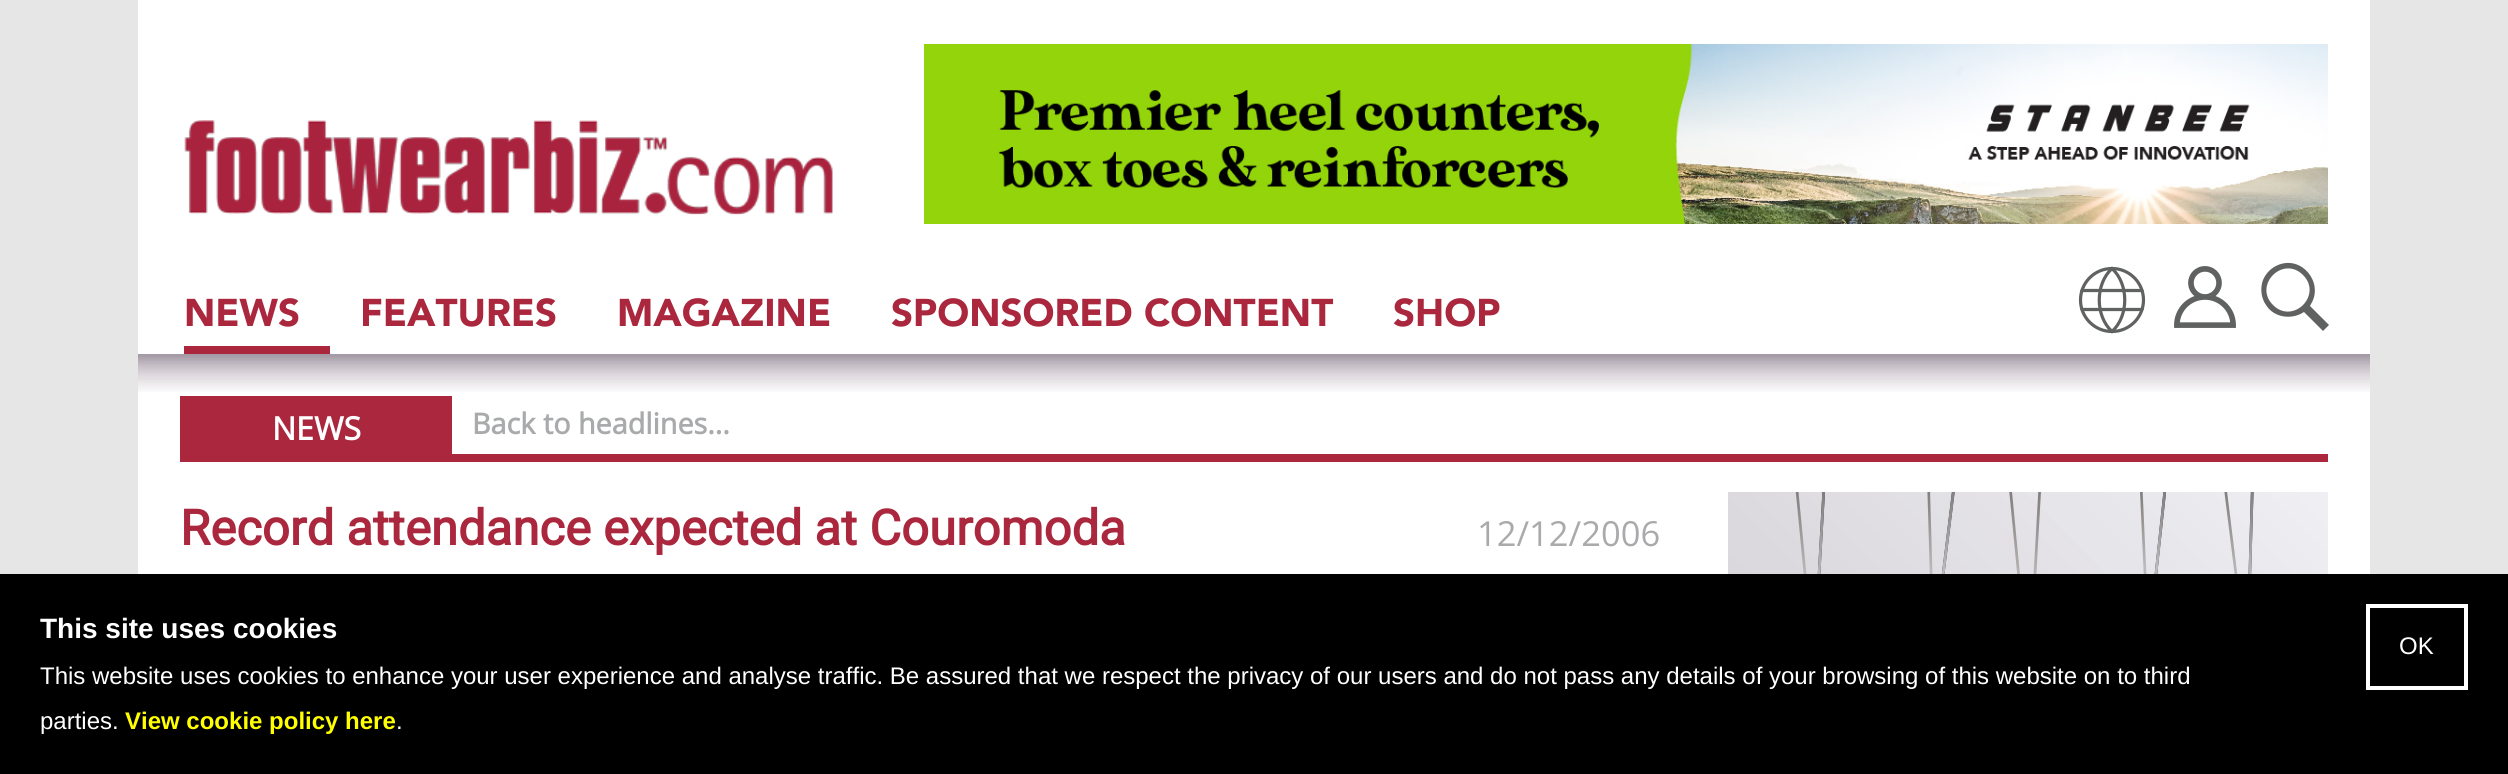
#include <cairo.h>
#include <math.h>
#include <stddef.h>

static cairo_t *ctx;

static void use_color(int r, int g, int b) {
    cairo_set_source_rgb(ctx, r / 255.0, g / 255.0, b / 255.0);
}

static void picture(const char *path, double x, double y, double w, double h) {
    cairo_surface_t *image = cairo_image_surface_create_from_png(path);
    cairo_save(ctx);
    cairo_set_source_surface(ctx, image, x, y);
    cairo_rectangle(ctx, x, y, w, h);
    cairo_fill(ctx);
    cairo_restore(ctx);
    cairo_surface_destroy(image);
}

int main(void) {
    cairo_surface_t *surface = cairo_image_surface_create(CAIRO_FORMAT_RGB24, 2508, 774);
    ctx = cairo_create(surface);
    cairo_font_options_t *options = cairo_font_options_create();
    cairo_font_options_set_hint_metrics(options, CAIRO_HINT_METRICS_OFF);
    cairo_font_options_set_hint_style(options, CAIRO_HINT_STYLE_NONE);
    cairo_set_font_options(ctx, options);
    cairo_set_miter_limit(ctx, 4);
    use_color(230, 230, 230);
    cairo_paint(ctx);
    use_color(255, 255, 255);
    cairo_rectangle(ctx, 138, 0, 2232, 354);
    cairo_fill(ctx);
    picture("img1.png", 184, 120, 649, 95);
    picture("img2.png", 924, 44, 1404, 180);
    cairo_select_font_face(ctx, "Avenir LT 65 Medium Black", CAIRO_FONT_SLANT_NORMAL, CAIRO_FONT_WEIGHT_NORMAL);
    cairo_set_font_size(ctx, 38.4);
    use_color(170, 39, 61);
    cairo_move_to(ctx, 184, 326);
    cairo_show_text(ctx, "NEWS");
    cairo_rectangle(ctx, 184, 346, 146, 8);
    cairo_fill(ctx);
    cairo_move_to(ctx, 360, 326);
    cairo_show_text(ctx, "FEATURES");
    cairo_move_to(ctx, 617, 326);
    cairo_show_text(ctx, "MAGAZINE");
    cairo_move_to(ctx, 891, 326);
    cairo_show_text(ctx, "SPONSORED CONTENT");
    cairo_move_to(ctx, 1393, 326);
    cairo_show_text(ctx, "SHOP");
    cairo_new_path(ctx);
    cairo_arc(ctx, 2112, 300, 31.5, 0, 2 * M_PI);
    use_color(96, 97, 97);
    cairo_set_line_width(ctx, 3.2);
    cairo_stroke(ctx);
    cairo_new_path(ctx);
    cairo_move_to(ctx, 2112, 331.5);
    cairo_curve_to(ctx, 2129, 316, 2129, 284, 2112, 268.5);
    cairo_curve_to(ctx, 2095, 284, 2095, 316, 2112, 331.5);
    cairo_close_path(ctx);
    cairo_set_line_cap(ctx, CAIRO_LINE_CAP_ROUND);
    cairo_stroke(ctx);
    cairo_new_path(ctx);
    cairo_move_to(ctx, 2082, 290.5);
    cairo_line_to(ctx, 2142, 290.5);
    cairo_move_to(ctx, 2082, 309.5);
    cairo_line_to(ctx, 2142, 309.5);
    cairo_stroke(ctx);
    picture("img3.png", 2174, 266, 62, 62);
    cairo_new_path(ctx);
    cairo_move_to(ctx, 2311, 304);
    cairo_curve_to(ctx, 2324, 283, 2302, 255, 2278, 265);
    cairo_curve_to(ctx, 2271, 268, 2266, 273, 2263, 280);
    cairo_curve_to(ctx, 2260, 288, 2261, 298, 2266, 305);
    cairo_curve_to(ctx, 2274, 318, 2292, 320, 2304, 312);
    cairo_line_to(ctx, 2323, 331);
    cairo_line_to(ctx, 2329, 325);
    cairo_line_to(ctx, 2310, 306);
    cairo_close_path(ctx);
    cairo_move_to(ctx, 2303, 275);
    cairo_curve_to(ctx, 2323, 295, 2293, 325, 2273, 305);
    cairo_curve_to(ctx, 2253, 285, 2283, 255, 2303, 275);
    cairo_close_path(ctx);
    cairo_fill(ctx);
    picture("img4.png", 138, 354, 2232, 38);
    use_color(255, 255, 255);
    cairo_rectangle(ctx, 138, 392, 2232, 182);
    cairo_fill(ctx);
    use_color(170, 39, 61);
    cairo_rectangle(ctx, 180, 396, 272, 58);
    cairo_fill(ctx);
    cairo_select_font_face(ctx, "Open Sans", CAIRO_FONT_SLANT_NORMAL, CAIRO_FONT_WEIGHT_BOLD);
    cairo_set_font_size(ctx, 32);
    use_color(255, 255, 255);
    cairo_move_to(ctx, 272, 440);
    cairo_show_text(ctx, "NEWS");
    cairo_set_font_size(ctx, 28.75);
    use_color(169, 170, 172);
    cairo_move_to(ctx, 472, 434);
    cairo_show_text(ctx, "Back to headlines...");
    use_color(170, 39, 61);
    cairo_rectangle(ctx, 180, 454, 2148, 8);
    cairo_fill(ctx);
    cairo_select_font_face(ctx, "Roboto", CAIRO_FONT_SLANT_NORMAL, CAIRO_FONT_WEIGHT_BOLD);
    cairo_set_font_size(ctx, 49);
    cairo_move_to(ctx, 180, 545);
    cairo_show_text(ctx, "Record attendance expected at Couromoda");
    cairo_select_font_face(ctx, "Open Sans", CAIRO_FONT_SLANT_NORMAL, CAIRO_FONT_WEIGHT_NORMAL);
    cairo_set_font_size(ctx, 34.5);
    use_color(169, 170, 172);
    cairo_move_to(ctx, 1477, 546);
    cairo_show_text(ctx, "12/12/2006");
    picture("img5.png", 1728, 492, 600, 82);
    use_color(0, 0, 0);
    cairo_rectangle(ctx, 0, 574, 2508, 200);
    cairo_fill(ctx);
    cairo_select_font_face(ctx, "Liberation Sans", CAIRO_FONT_SLANT_NORMAL, CAIRO_FONT_WEIGHT_BOLD);
    cairo_set_font_size(ctx, 28);
    use_color(255, 255, 255);
    cairo_move_to(ctx, 40, 638);
    cairo_show_text(ctx, "This site uses cookies");
    cairo_select_font_face(ctx, "Liberation Sans", CAIRO_FONT_SLANT_NORMAL, CAIRO_FONT_WEIGHT_NORMAL);
    cairo_set_font_size(ctx, 24);
    cairo_move_to(ctx, 40, 684);
    cairo_show_text(ctx, "This website uses cookies to enhance your user experience and analyse traffic. Be assured that we respect the privacy of our users and do not pass any details of your browsing of this website on to third");
    cairo_move_to(ctx, 40, 729);
    cairo_show_text(ctx, "parties.");
    cairo_select_font_face(ctx, "Liberation Sans", CAIRO_FONT_SLANT_NORMAL, CAIRO_FONT_WEIGHT_BOLD);
    use_color(255, 255, 0);
    cairo_move_to(ctx, 125, 729);
    cairo_show_text(ctx, "View cookie policy here");
    cairo_select_font_face(ctx, "Liberation Sans", CAIRO_FONT_SLANT_NORMAL, CAIRO_FONT_WEIGHT_NORMAL);
    use_color(255, 255, 255);
    cairo_move_to(ctx, 396, 729);
    cairo_show_text(ctx, ".");
    cairo_rectangle(ctx, 2368, 606, 98, 82);
    cairo_set_line_width(ctx, 4);
    cairo_set_line_cap(ctx, CAIRO_LINE_CAP_BUTT);
    cairo_stroke(ctx);
    cairo_move_to(ctx, 2399, 654);
    cairo_show_text(ctx, "OK");
    cairo_surface_write_to_png(surface, "result.png");
    cairo_font_options_destroy(options);
    cairo_destroy(ctx);
    cairo_surface_destroy(surface);
    return 0;
}
